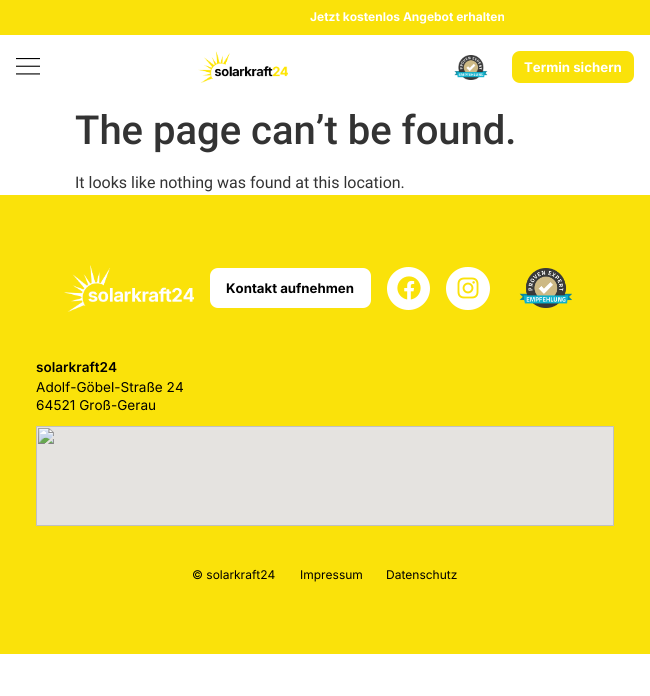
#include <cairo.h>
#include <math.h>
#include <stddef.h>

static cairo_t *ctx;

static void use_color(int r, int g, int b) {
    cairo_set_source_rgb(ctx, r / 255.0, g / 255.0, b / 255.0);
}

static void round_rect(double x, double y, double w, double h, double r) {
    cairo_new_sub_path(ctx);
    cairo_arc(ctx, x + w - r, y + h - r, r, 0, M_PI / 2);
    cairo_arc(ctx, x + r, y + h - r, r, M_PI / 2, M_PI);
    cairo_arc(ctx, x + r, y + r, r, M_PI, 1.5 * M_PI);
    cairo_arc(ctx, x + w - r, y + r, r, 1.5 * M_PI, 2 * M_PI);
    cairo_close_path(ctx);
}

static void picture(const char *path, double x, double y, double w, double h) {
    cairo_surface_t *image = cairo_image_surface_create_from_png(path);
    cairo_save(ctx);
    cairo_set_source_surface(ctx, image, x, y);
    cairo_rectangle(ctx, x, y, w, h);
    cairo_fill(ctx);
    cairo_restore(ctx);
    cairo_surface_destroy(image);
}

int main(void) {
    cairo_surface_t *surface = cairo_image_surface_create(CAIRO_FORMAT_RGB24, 650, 696);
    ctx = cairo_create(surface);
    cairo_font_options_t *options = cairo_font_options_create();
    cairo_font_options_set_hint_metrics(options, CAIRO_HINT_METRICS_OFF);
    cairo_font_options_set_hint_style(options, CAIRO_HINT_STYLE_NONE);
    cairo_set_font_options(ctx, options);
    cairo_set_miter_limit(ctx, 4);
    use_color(255, 255, 255);
    cairo_paint(ctx);
    use_color(250, 226, 10);
    cairo_rectangle(ctx, 0, 0, 650, 35);
    cairo_fill(ctx);
    cairo_select_font_face(ctx, "Inter", CAIRO_FONT_SLANT_NORMAL, CAIRO_FONT_WEIGHT_BOLD);
    cairo_set_font_size(ctx, 12);
    use_color(255, 255, 255);
    cairo_move_to(ctx, 310, 21);
    cairo_show_text(ctx, "Jetzt kostenlos Angebot erhalten");
    picture("img1.png", 16, 58, 24, 17);
    picture("img2.png", 198, 51, 90, 32);
    picture("img3.png", 454, 55, 34, 25);
    use_color(250, 226, 10);
    round_rect(512, 51, 122, 32, 8);
    cairo_fill(ctx);
    cairo_set_font_size(ctx, 13.25);
    use_color(255, 255, 255);
    cairo_move_to(ctx, 524, 72);
    cairo_show_text(ctx, "Termin sichern");
    cairo_select_font_face(ctx, "Roboto Medium", CAIRO_FONT_SLANT_NORMAL, CAIRO_FONT_WEIGHT_NORMAL);
    cairo_set_font_size(ctx, 40);
    use_color(51, 51, 51);
    cairo_move_to(ctx, 75, 144);
    cairo_show_text(ctx, "The page can’t be found.");
    cairo_select_font_face(ctx, "Roboto", CAIRO_FONT_SLANT_NORMAL, CAIRO_FONT_WEIGHT_NORMAL);
    cairo_set_font_size(ctx, 16);
    cairo_move_to(ctx, 75, 188);
    cairo_show_text(ctx, "It looks like nothing was found at this location.");
    use_color(250, 226, 10);
    cairo_rectangle(ctx, 0, 195, 650, 459);
    cairo_fill(ctx);
    picture("img4.png", 64, 265, 130, 47);
    use_color(255, 255, 255);
    round_rect(210, 268, 161, 40, 8);
    cairo_fill(ctx);
    cairo_select_font_face(ctx, "Inter", CAIRO_FONT_SLANT_NORMAL, CAIRO_FONT_WEIGHT_BOLD);
    cairo_set_font_size(ctx, 13.25);
    use_color(0, 0, 0);
    cairo_move_to(ctx, 226, 293);
    cairo_show_text(ctx, "Kontakt aufnehmen");
    use_color(255, 255, 255);
    cairo_new_path(ctx);
    cairo_arc(ctx, 408.5, 288.5, 21.5, 0, 2 * M_PI);
    cairo_fill(ctx);
    picture("img5.png", 397, 276, 24, 24);
    round_rect(446, 267, 44, 43, 21.5);
    cairo_fill(ctx);
    picture("img6.png", 457, 277, 22, 22);
    picture("img7.png", 519, 268, 53, 40);
    cairo_select_font_face(ctx, "Inter SemiBold", CAIRO_FONT_SLANT_NORMAL, CAIRO_FONT_WEIGHT_NORMAL);
    cairo_set_font_size(ctx, 13.6);
    use_color(0, 0, 0);
    cairo_move_to(ctx, 36, 372);
    cairo_show_text(ctx, "solarkraft24");
    cairo_select_font_face(ctx, "Inter", CAIRO_FONT_SLANT_NORMAL, CAIRO_FONT_WEIGHT_NORMAL);
    cairo_move_to(ctx, 36, 392);
    cairo_show_text(ctx, "Adolf-Göbel-Straße 24");
    cairo_move_to(ctx, 36, 410);
    cairo_show_text(ctx, "64521 Groß-Gerau");
    picture("img8.png", 36, 426, 578, 100);
    cairo_set_font_size(ctx, 12);
    cairo_move_to(ctx, 192, 579);
    cairo_show_text(ctx, "© solarkraft24");
    cairo_move_to(ctx, 300, 579);
    cairo_show_text(ctx, "Impressum");
    cairo_move_to(ctx, 386, 579);
    cairo_show_text(ctx, "Datenschutz");
    cairo_surface_write_to_png(surface, "result.png");
    cairo_font_options_destroy(options);
    cairo_destroy(ctx);
    cairo_surface_destroy(surface);
    return 0;
}
